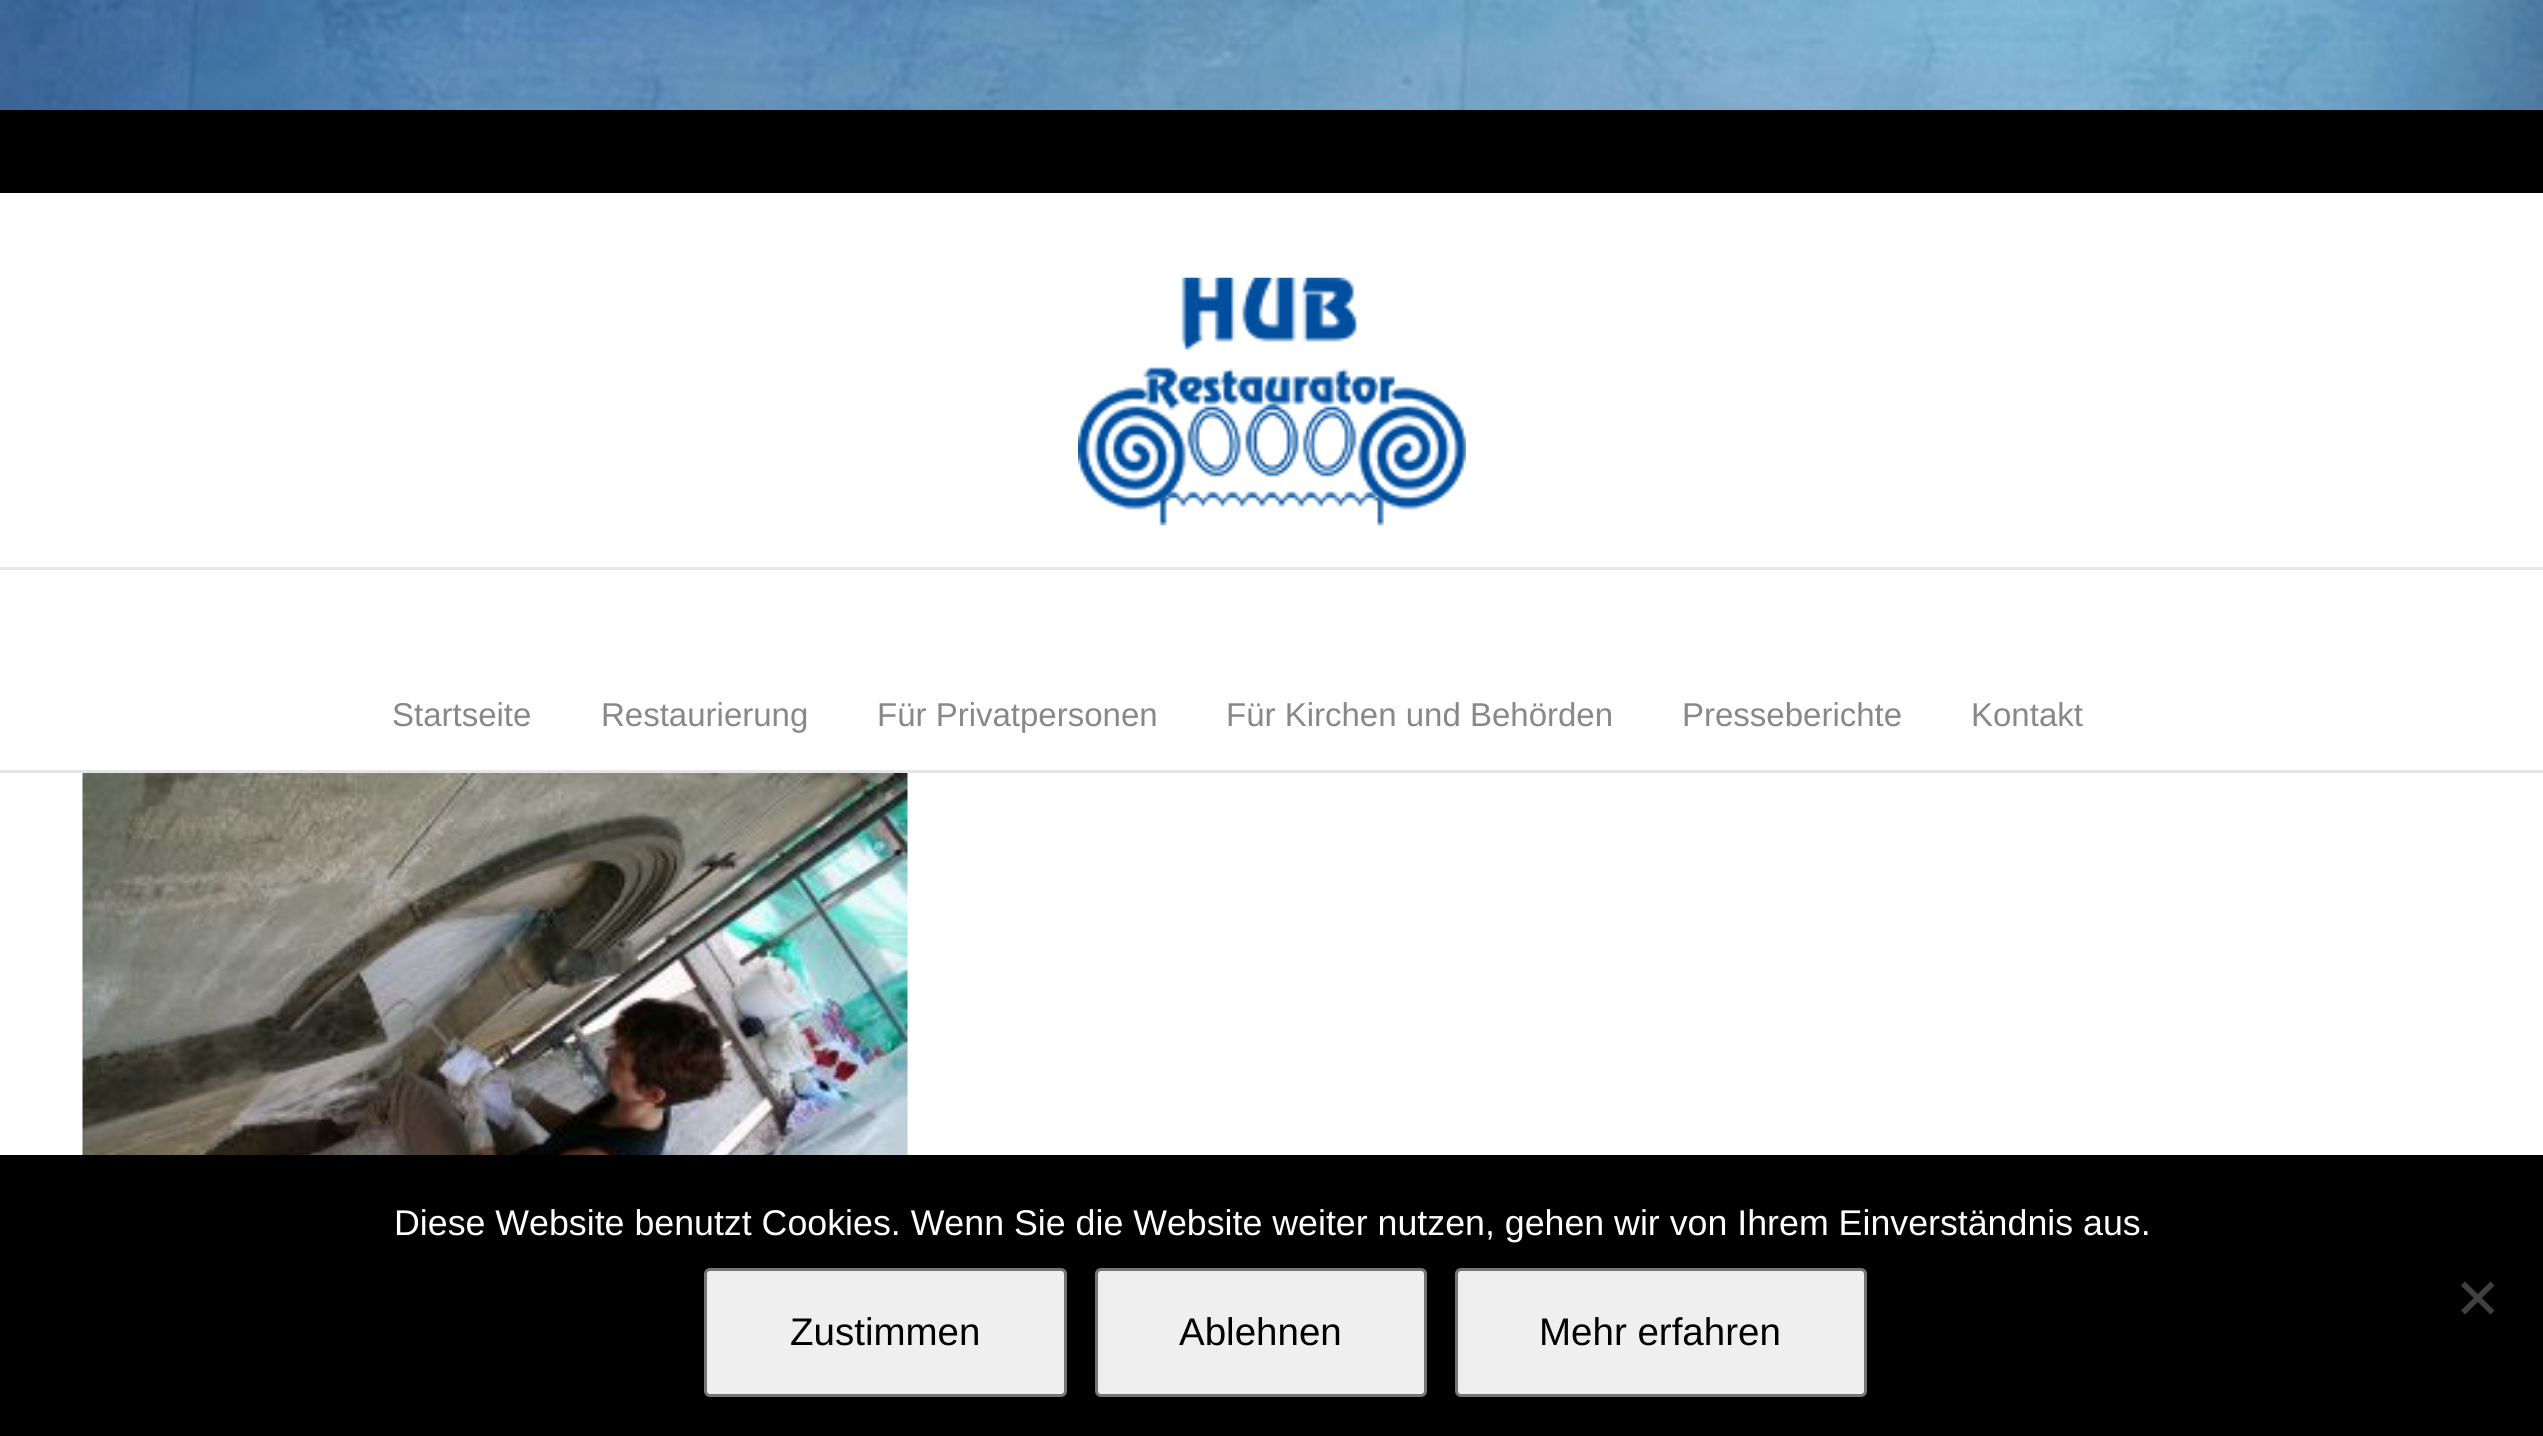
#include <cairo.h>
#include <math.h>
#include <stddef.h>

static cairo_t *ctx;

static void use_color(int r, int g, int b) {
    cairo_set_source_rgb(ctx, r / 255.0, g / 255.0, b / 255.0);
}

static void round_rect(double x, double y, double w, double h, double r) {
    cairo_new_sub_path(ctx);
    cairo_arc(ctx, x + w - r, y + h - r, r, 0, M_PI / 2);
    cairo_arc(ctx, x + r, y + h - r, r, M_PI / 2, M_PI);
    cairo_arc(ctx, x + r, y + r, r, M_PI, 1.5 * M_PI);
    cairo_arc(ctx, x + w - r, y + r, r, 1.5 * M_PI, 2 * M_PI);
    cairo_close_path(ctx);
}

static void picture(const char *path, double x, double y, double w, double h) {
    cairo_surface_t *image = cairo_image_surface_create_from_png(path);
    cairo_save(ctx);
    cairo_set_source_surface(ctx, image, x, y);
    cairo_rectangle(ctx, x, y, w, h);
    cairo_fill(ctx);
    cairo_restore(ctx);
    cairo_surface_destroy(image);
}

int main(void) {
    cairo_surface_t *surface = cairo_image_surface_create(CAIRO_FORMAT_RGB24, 2543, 1436);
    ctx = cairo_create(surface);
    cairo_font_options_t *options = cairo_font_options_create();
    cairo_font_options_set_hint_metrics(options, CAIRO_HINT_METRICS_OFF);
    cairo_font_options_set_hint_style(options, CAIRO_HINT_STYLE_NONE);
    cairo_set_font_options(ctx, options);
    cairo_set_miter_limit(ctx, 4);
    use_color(255, 255, 255);
    cairo_paint(ctx);
    picture("img1.png", 0, 0, 2543, 110);
    use_color(0, 0, 0);
    cairo_rectangle(ctx, 0, 110, 2543, 83);
    cairo_fill(ctx);
    use_color(229, 229, 229);
    cairo_rectangle(ctx, 0, 567, 2543, 3);
    cairo_fill(ctx);
    picture("img2.png", 1078, 277, 388, 249);
    cairo_rectangle(ctx, 0, 770, 2543, 3);
    cairo_fill(ctx);
    cairo_select_font_face(ctx, "Liberation Sans", CAIRO_FONT_SLANT_NORMAL, CAIRO_FONT_WEIGHT_NORMAL);
    cairo_set_font_size(ctx, 33);
    use_color(137, 135, 135);
    cairo_move_to(ctx, 392, 726);
    cairo_show_text(ctx, "Startseite");
    cairo_move_to(ctx, 601, 726);
    cairo_show_text(ctx, "Restaurierung");
    cairo_move_to(ctx, 877, 726);
    cairo_show_text(ctx, "Für Privatpersonen");
    cairo_move_to(ctx, 1226, 726);
    cairo_show_text(ctx, "Für Kirchen und Behörden");
    cairo_move_to(ctx, 1682, 726);
    cairo_show_text(ctx, "Presseberichte");
    cairo_move_to(ctx, 1971, 726);
    cairo_show_text(ctx, "Kontakt");
    picture("img3.png", 82, 773, 826, 382);
    use_color(0, 0, 0);
    cairo_rectangle(ctx, 0, 1155, 2543, 281);
    cairo_fill(ctx);
    cairo_set_font_size(ctx, 35.75);
    use_color(255, 255, 255);
    cairo_move_to(ctx, 394, 1235);
    cairo_show_text(ctx, "Diese Website benutzt Cookies. Wenn Sie die Website weiter nutzen, gehen wir von Ihrem Einverständnis aus.");
    use_color(64, 64, 64);
    cairo_new_path(ctx);
    cairo_move_to(ctx, 2490.5, 1281.5);
    cairo_line_to(ctx, 2494.5, 1285.5);
    cairo_line_to(ctx, 2465, 1314.5);
    cairo_line_to(ctx, 2461, 1310.5);
    cairo_close_path(ctx);
    cairo_fill(ctx);
    cairo_new_path(ctx);
    cairo_move_to(ctx, 2461, 1285.5);
    cairo_line_to(ctx, 2465, 1281.5);
    cairo_line_to(ctx, 2494.5, 1310.5);
    cairo_line_to(ctx, 2490.5, 1314.5);
    cairo_close_path(ctx);
    cairo_fill(ctx);
    use_color(239, 239, 239);
    round_rect(705.5, 1269.5, 360, 126, 4.5);
    cairo_fill_preserve(ctx);
    use_color(118, 118, 118);
    cairo_set_line_width(ctx, 3);
    cairo_stroke(ctx);
    cairo_set_font_size(ctx, 38.5);
    use_color(0, 0, 0);
    cairo_move_to(ctx, 790, 1345);
    cairo_show_text(ctx, "Zustimmen");
    use_color(239, 239, 239);
    round_rect(1096.5, 1269.5, 329, 126, 4.5);
    cairo_fill_preserve(ctx);
    use_color(118, 118, 118);
    cairo_stroke(ctx);
    use_color(0, 0, 0);
    cairo_move_to(ctx, 1179, 1345);
    cairo_show_text(ctx, "Ablehnen");
    use_color(239, 239, 239);
    round_rect(1456.5, 1269.5, 409, 126, 4.5);
    cairo_fill_preserve(ctx);
    use_color(118, 118, 118);
    cairo_stroke(ctx);
    use_color(0, 0, 0);
    cairo_move_to(ctx, 1539, 1345);
    cairo_show_text(ctx, "Mehr erfahren");
    cairo_surface_write_to_png(surface, "result.png");
    cairo_font_options_destroy(options);
    cairo_destroy(ctx);
    cairo_surface_destroy(surface);
    return 0;
}
